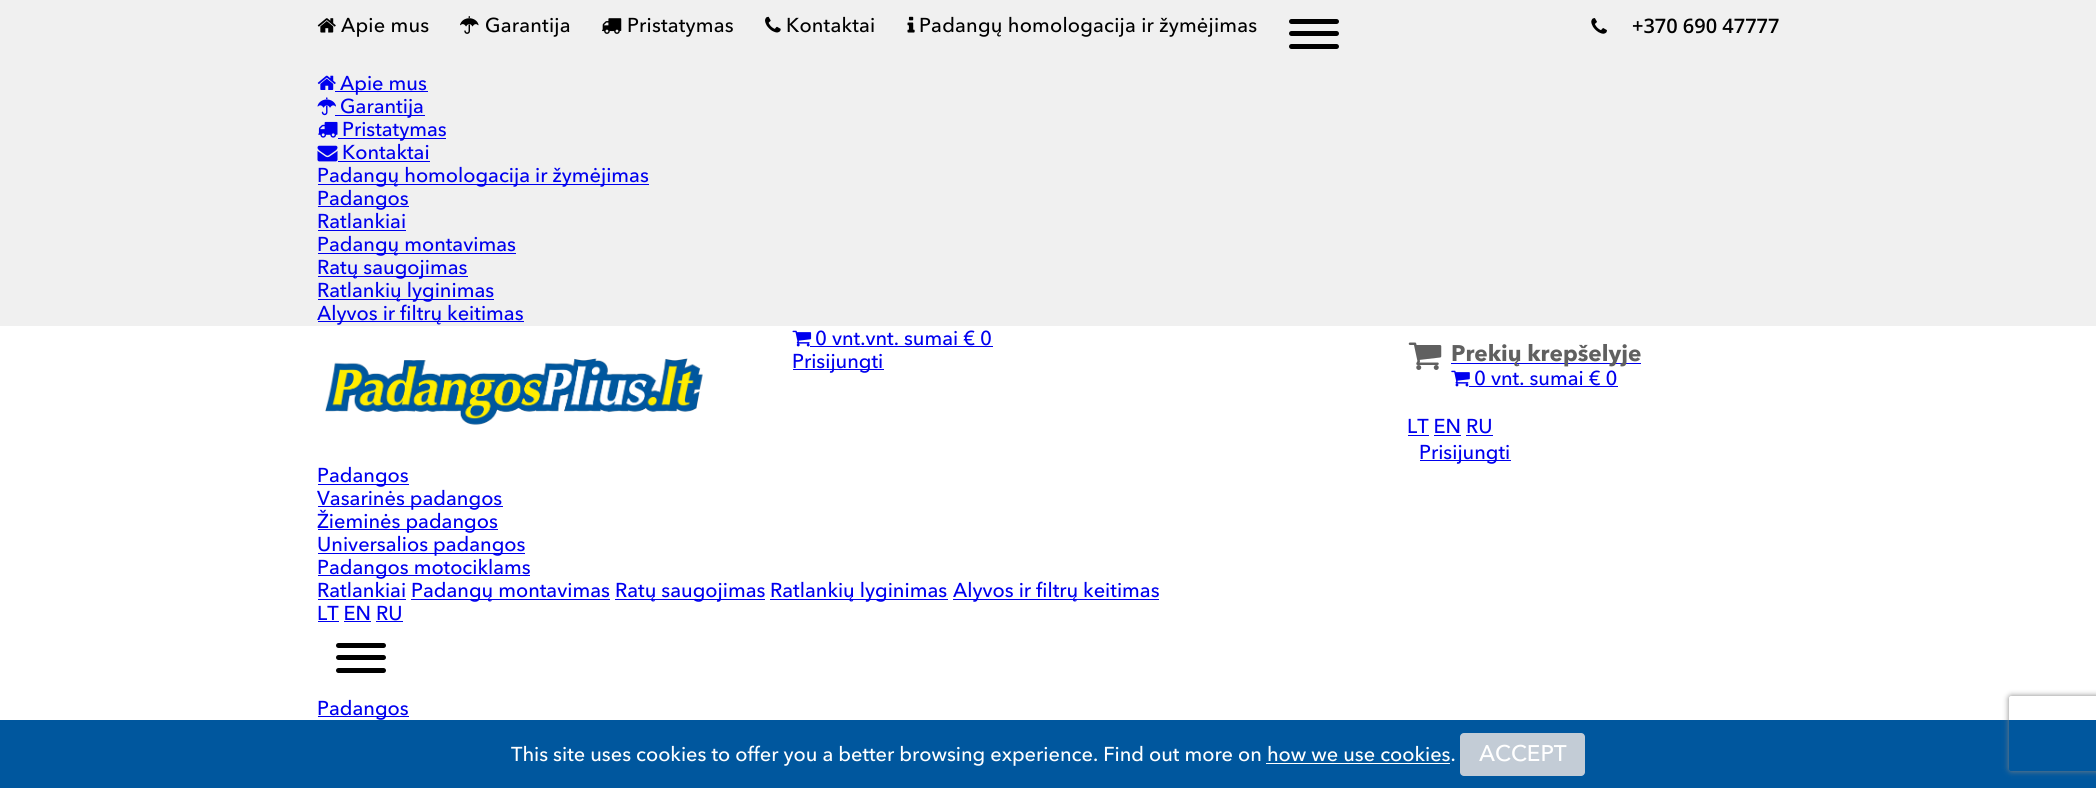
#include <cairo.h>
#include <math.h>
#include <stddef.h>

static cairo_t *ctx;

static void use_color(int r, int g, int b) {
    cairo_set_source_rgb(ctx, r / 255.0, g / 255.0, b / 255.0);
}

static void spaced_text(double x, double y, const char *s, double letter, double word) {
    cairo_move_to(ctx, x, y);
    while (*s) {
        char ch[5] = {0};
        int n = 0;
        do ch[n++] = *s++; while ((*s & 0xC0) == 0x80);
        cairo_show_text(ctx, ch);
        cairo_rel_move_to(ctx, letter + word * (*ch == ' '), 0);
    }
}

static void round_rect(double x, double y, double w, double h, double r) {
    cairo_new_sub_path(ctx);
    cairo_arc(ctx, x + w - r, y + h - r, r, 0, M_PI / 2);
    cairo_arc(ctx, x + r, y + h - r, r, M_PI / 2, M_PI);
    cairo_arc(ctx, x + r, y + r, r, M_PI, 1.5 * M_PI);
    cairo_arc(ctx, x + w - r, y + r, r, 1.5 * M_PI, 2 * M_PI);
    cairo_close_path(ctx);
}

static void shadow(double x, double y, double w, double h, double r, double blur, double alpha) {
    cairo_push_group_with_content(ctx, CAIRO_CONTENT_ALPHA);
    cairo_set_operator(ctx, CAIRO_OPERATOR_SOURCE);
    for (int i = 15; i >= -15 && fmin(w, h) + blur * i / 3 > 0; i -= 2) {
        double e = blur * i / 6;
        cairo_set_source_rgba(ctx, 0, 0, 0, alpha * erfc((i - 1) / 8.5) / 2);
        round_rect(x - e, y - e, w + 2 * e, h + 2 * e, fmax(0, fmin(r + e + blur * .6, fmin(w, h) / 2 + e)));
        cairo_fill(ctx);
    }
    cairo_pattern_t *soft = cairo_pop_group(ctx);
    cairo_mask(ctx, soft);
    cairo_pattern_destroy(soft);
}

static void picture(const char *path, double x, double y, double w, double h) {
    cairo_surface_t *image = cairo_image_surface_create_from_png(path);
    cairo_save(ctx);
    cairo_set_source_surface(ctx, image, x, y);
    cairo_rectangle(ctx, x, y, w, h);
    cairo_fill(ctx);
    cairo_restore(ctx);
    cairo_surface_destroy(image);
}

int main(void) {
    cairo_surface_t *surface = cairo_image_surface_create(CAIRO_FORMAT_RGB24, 2096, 788);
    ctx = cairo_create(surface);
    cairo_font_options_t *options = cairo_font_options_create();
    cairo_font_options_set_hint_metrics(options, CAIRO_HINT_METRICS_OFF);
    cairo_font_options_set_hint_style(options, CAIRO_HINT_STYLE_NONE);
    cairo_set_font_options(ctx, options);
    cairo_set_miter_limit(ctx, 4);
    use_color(255, 255, 255);
    cairo_paint(ctx);
    use_color(240, 240, 240);
    cairo_rectangle(ctx, 0, 0, 2096, 326);
    cairo_fill(ctx);
    picture("img1.png", 317, 18, 19, 15);
    cairo_select_font_face(ctx, "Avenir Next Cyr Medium", CAIRO_FONT_SLANT_NORMAL, CAIRO_FONT_WEIGHT_NORMAL);
    cairo_set_font_size(ctx, 20);
    use_color(0, 0, 0);
    spaced_text(341, 32, "Apie mus", 0.2, 0);
    picture("img2.png", 460, 16, 19, 18);
    spaced_text(485, 32, "Garantija", 0.2, 0);
    picture("img3.png", 602, 18, 20, 16);
    spaced_text(627, 32, "Pristatymas", 0.2, 0);
    picture("img4.png", 765, 16, 16, 17);
    spaced_text(786, 32, "Kontaktai", 0.2, 0);
    picture("img5.png", 907, 16, 8, 17);
    spaced_text(919, 32, "Padangų homologacija ir žymėjimas", 0.2, 0);
    picture("img6.png", 1591, 18, 16, 16);
    cairo_select_font_face(ctx, "Open Sans SemiBold", CAIRO_FONT_SLANT_NORMAL, CAIRO_FONT_WEIGHT_NORMAL);
    cairo_move_to(ctx, 1632, 33);
    cairo_show_text(ctx, "+370 690 47777");
    round_rect(1289, 44, 50, 5, 2.5);
    cairo_fill(ctx);
    round_rect(1289, 19, 50, 5, 2.5);
    cairo_fill(ctx);
    round_rect(1289, 31, 50, 5, 2.5);
    cairo_fill(ctx);
    picture("img7.png", 317, 75, 19, 15);
    use_color(0, 0, 238);
    cairo_rectangle(ctx, 335, 91, 93, 1);
    cairo_fill(ctx);
    cairo_select_font_face(ctx, "Avenir Next Cyr Medium", CAIRO_FONT_SLANT_NORMAL, CAIRO_FONT_WEIGHT_NORMAL);
    cairo_move_to(ctx, 340, 90);
    cairo_show_text(ctx, "Apie mus");
    picture("img8.png", 317, 97, 19, 19);
    cairo_rectangle(ctx, 335, 115, 90, 1);
    cairo_fill(ctx);
    cairo_move_to(ctx, 340, 113);
    cairo_show_text(ctx, "Garantija");
    picture("img9.png", 318, 121, 20, 17);
    cairo_rectangle(ctx, 338, 138, 108, 1);
    cairo_fill(ctx);
    cairo_move_to(ctx, 342, 136);
    cairo_show_text(ctx, "Pristatymas");
    picture("img10.png", 317, 145, 21, 17);
    cairo_move_to(ctx, 342, 159);
    cairo_show_text(ctx, "Kontaktai");
    cairo_rectangle(ctx, 338, 161, 92, 1);
    cairo_fill(ctx);
    cairo_rectangle(ctx, 318, 184, 331, 1);
    cairo_fill(ctx);
    cairo_move_to(ctx, 317, 182);
    cairo_show_text(ctx, "Padangų homologacija ir žymėjimas");
    cairo_rectangle(ctx, 318, 206, 91, 1);
    cairo_fill(ctx);
    cairo_move_to(ctx, 317, 205);
    cairo_show_text(ctx, "Padangos");
    cairo_move_to(ctx, 317, 228);
    cairo_show_text(ctx, "Ratlankiai");
    cairo_rectangle(ctx, 318, 230, 88, 1);
    cairo_fill(ctx);
    cairo_rectangle(ctx, 318, 253, 198, 1);
    cairo_fill(ctx);
    cairo_move_to(ctx, 317, 251);
    cairo_show_text(ctx, "Padangų montavimas");
    cairo_rectangle(ctx, 318, 276, 150, 1);
    cairo_fill(ctx);
    cairo_move_to(ctx, 317, 274);
    cairo_show_text(ctx, "Ratų saugojimas");
    cairo_rectangle(ctx, 318, 299, 176, 1);
    cairo_fill(ctx);
    cairo_move_to(ctx, 317, 297);
    cairo_show_text(ctx, "Ratlankių lyginimas");
    cairo_rectangle(ctx, 318, 321, 206, 1);
    cairo_fill(ctx);
    cairo_move_to(ctx, 317, 320);
    cairo_show_text(ctx, "Alyvos ir filtrų keitimas");
    picture("img11.png", 325, 358, 378, 67);
    picture("img12.png", 792, 330, 20, 17);
    cairo_move_to(ctx, 815, 345);
    cairo_show_text(ctx, "0 vnt.vnt. sumai € 0");
    cairo_rectangle(ctx, 810, 346, 183, 1);
    cairo_fill(ctx);
    cairo_rectangle(ctx, 793, 369, 91, 1);
    cairo_fill(ctx);
    cairo_move_to(ctx, 792, 368);
    cairo_show_text(ctx, "Prisijungti");
    picture("img13.png", 1408, 342, 34, 28);
    cairo_rectangle(ctx, 1451, 363, 190, 1);
    cairo_fill(ctx);
    cairo_select_font_face(ctx, "Avenir Next Cyr", CAIRO_FONT_SLANT_NORMAL, CAIRO_FONT_WEIGHT_BOLD);
    cairo_set_font_size(ctx, 22.5);
    use_color(96, 96, 96);
    cairo_move_to(ctx, 1451, 361);
    cairo_show_text(ctx, "Prekių krepšelyje");
    picture("img14.png", 1451, 370, 19, 17);
    cairo_select_font_face(ctx, "Avenir Next Cyr Medium", CAIRO_FONT_SLANT_NORMAL, CAIRO_FONT_WEIGHT_NORMAL);
    cairo_set_font_size(ctx, 20);
    use_color(0, 0, 238);
    cairo_move_to(ctx, 1474, 385);
    cairo_show_text(ctx, "0 vnt. sumai € 0");
    cairo_rectangle(ctx, 1469, 386, 149, 1);
    cairo_fill(ctx);
    cairo_move_to(ctx, 1407, 433);
    cairo_show_text(ctx, "LT EN RU");
    cairo_rectangle(ctx, 1408, 435, 21, 1);
    cairo_fill(ctx);
    cairo_rectangle(ctx, 1434, 435, 27, 1);
    cairo_fill(ctx);
    cairo_rectangle(ctx, 1466, 435, 27, 1);
    cairo_fill(ctx);
    cairo_rectangle(ctx, 1420, 460, 91, 1);
    cairo_fill(ctx);
    cairo_move_to(ctx, 1419, 459);
    cairo_show_text(ctx, "Prisijungti");
    cairo_rectangle(ctx, 318, 484, 91, 1);
    cairo_fill(ctx);
    cairo_move_to(ctx, 317, 482);
    cairo_show_text(ctx, "Padangos");
    cairo_rectangle(ctx, 318, 506, 185, 1);
    cairo_fill(ctx);
    cairo_move_to(ctx, 317, 505);
    cairo_show_text(ctx, "Vasarinės padangos");
    cairo_rectangle(ctx, 318, 529, 180, 1);
    cairo_fill(ctx);
    cairo_move_to(ctx, 317, 528);
    cairo_show_text(ctx, "Žieminės padangos");
    cairo_rectangle(ctx, 318, 553, 207, 1);
    cairo_fill(ctx);
    cairo_move_to(ctx, 317, 551);
    cairo_show_text(ctx, "Universalios padangos");
    cairo_rectangle(ctx, 318, 575, 212, 1);
    cairo_fill(ctx);
    cairo_move_to(ctx, 317, 574);
    cairo_show_text(ctx, "Padangos motociklams");
    cairo_move_to(ctx, 317, 597);
    cairo_show_text(ctx, "Ratlankiai");
    cairo_rectangle(ctx, 318, 599, 88, 1);
    cairo_fill(ctx);
    cairo_rectangle(ctx, 411, 599, 199, 1);
    cairo_fill(ctx);
    cairo_move_to(ctx, 411, 597);
    cairo_show_text(ctx, "Padangų montavimas");
    cairo_rectangle(ctx, 615, 599, 150, 1);
    cairo_fill(ctx);
    cairo_move_to(ctx, 615, 597);
    cairo_show_text(ctx, "Ratų saugojimas");
    cairo_rectangle(ctx, 770, 599, 178, 1);
    cairo_fill(ctx);
    cairo_move_to(ctx, 770, 597);
    cairo_show_text(ctx, "Ratlankių lyginimas");
    cairo_rectangle(ctx, 953, 599, 206, 1);
    cairo_fill(ctx);
    cairo_move_to(ctx, 953, 597);
    cairo_show_text(ctx, "Alyvos ir filtrų keitimas");
    cairo_move_to(ctx, 317, 620);
    cairo_show_text(ctx, "LT EN RU");
    cairo_rectangle(ctx, 318, 621, 21, 1);
    cairo_fill(ctx);
    cairo_rectangle(ctx, 344, 621, 27, 1);
    cairo_fill(ctx);
    cairo_rectangle(ctx, 376, 621, 27, 1);
    cairo_fill(ctx);
    use_color(0, 0, 0);
    round_rect(336, 668, 50, 5, 2.5);
    cairo_fill(ctx);
    round_rect(336, 643, 50, 5, 2.5);
    cairo_fill(ctx);
    round_rect(336, 655, 50, 5, 2.5);
    cairo_fill(ctx);
    use_color(0, 0, 238);
    cairo_rectangle(ctx, 318, 716, 91, 1);
    cairo_fill(ctx);
    cairo_move_to(ctx, 317, 715);
    cairo_show_text(ctx, "Padangos");
    use_color(0, 87, 158);
    cairo_rectangle(ctx, 0, 720, 2096, 68);
    cairo_fill(ctx);
    use_color(255, 255, 255);
    cairo_move_to(ctx, 511, 761);
    cairo_show_text(ctx, "This site uses cookies to offer you a better browsing experience. Find out more on how we use cookies.");
    use_color(195, 204, 214);
    round_rect(1460, 733, 125, 43, 4);
    cairo_fill(ctx);
    cairo_set_font_size(ctx, 22.5);
    use_color(255, 255, 255);
    cairo_move_to(ctx, 1479, 761);
    cairo_show_text(ctx, "ACCEPT");
    cairo_rectangle(ctx, 1266, 763, 184, 1);
    cairo_fill(ctx);
    cairo_save(ctx);
    cairo_set_fill_rule(ctx, CAIRO_FILL_RULE_EVEN_ODD);
    cairo_new_path(ctx);
    cairo_move_to(ctx, 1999, 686);
    cairo_line_to(ctx, 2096, 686);
    cairo_line_to(ctx, 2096, 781);
    cairo_line_to(ctx, 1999, 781);
    cairo_close_path(ctx);
    cairo_move_to(ctx, 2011.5, 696);
    cairo_line_to(ctx, 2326.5, 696);
    cairo_curve_to(ctx, 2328, 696, 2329, 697, 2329, 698.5);
    cairo_line_to(ctx, 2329, 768.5);
    cairo_curve_to(ctx, 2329, 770, 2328, 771, 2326.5, 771);
    cairo_line_to(ctx, 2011.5, 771);
    cairo_curve_to(ctx, 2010, 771, 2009, 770, 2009, 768.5);
    cairo_line_to(ctx, 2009, 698.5);
    cairo_curve_to(ctx, 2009, 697, 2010, 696, 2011.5, 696);
    cairo_close_path(ctx);
    cairo_clip(ctx);
    use_color(128, 128, 128);
    shadow(2009, 696, 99, 75, 2.5, 3, 1);
    cairo_restore(ctx);
    cairo_surface_write_to_png(surface, "result.png");
    cairo_font_options_destroy(options);
    cairo_destroy(ctx);
    cairo_surface_destroy(surface);
    return 0;
}
